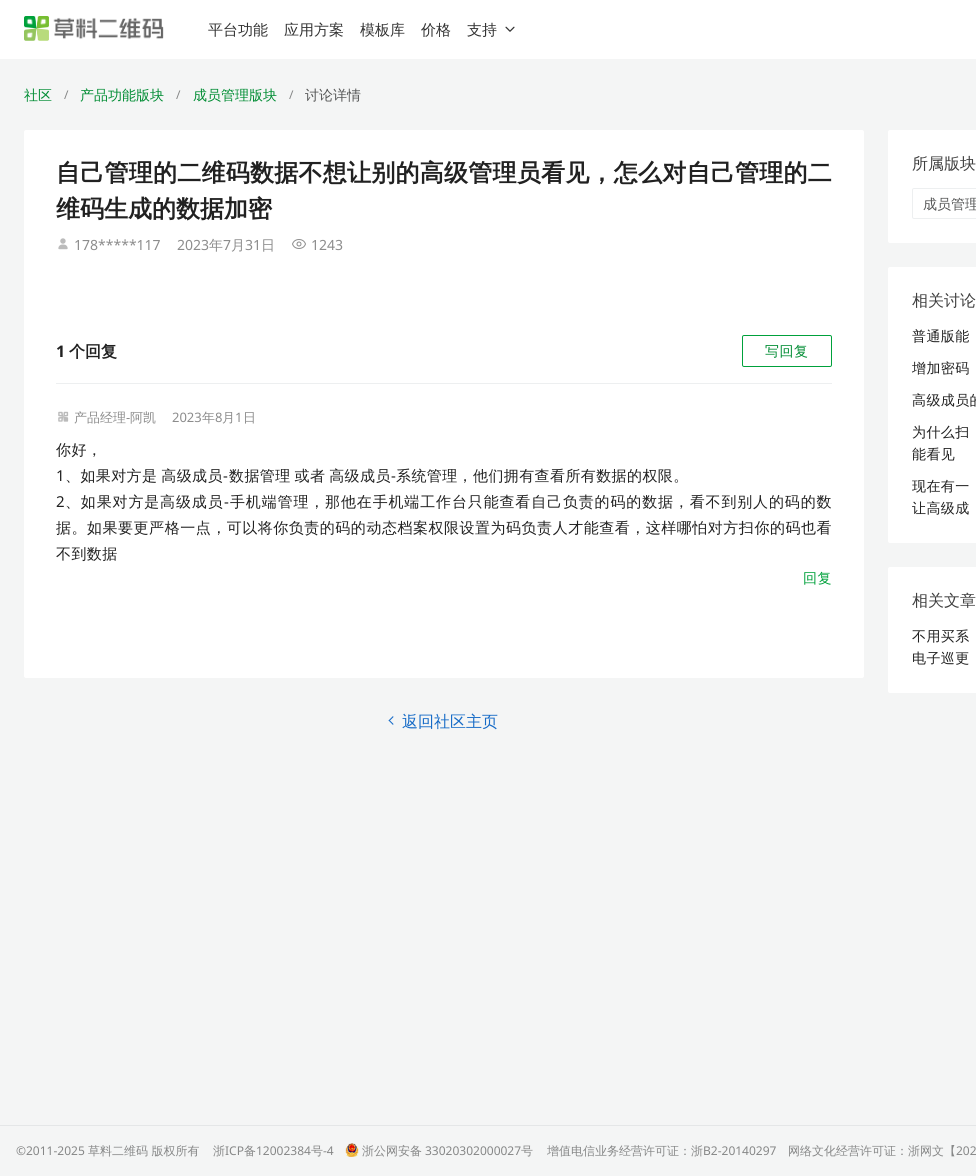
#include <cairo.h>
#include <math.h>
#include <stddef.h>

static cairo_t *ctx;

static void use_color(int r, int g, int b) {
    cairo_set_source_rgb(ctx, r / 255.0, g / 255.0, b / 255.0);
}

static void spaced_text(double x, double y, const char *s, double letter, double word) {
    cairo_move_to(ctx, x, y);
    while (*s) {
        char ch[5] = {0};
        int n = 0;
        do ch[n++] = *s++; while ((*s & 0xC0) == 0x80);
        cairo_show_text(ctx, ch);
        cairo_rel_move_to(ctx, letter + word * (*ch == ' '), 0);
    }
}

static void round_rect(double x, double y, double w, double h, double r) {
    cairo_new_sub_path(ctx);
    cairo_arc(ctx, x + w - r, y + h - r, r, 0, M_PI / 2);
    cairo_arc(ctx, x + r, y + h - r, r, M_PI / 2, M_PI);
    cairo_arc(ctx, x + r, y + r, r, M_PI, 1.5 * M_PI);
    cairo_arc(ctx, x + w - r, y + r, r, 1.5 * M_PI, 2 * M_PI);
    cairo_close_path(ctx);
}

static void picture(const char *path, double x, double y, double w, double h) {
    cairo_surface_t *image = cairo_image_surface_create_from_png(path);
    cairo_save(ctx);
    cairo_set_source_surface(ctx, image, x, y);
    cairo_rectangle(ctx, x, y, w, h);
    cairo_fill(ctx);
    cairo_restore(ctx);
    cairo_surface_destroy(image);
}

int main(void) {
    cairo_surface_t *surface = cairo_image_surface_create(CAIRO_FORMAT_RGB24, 976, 1176);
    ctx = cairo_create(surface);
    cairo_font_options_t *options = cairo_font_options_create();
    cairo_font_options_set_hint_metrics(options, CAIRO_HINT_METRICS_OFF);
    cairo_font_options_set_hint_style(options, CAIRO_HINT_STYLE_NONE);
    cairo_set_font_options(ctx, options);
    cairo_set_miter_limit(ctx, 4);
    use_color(244, 245, 245);
    cairo_paint(ctx);
    use_color(255, 255, 255);
    cairo_rectangle(ctx, 0, 0, 976, 59);
    cairo_fill(ctx);
    picture("img1.png", 24, 16, 140, 25);
    cairo_select_font_face(ctx, "WenQuanYi Zen Hei Medium", CAIRO_FONT_SLANT_NORMAL, CAIRO_FONT_WEIGHT_NORMAL);
    cairo_set_font_size(ctx, 15);
    use_color(51, 51, 51);
    cairo_move_to(ctx, 208, 35);
    cairo_show_text(ctx, "平台功能");
    cairo_move_to(ctx, 284, 35);
    cairo_show_text(ctx, "应用方案");
    cairo_move_to(ctx, 360, 35);
    cairo_show_text(ctx, "模板库");
    cairo_move_to(ctx, 421, 35);
    cairo_show_text(ctx, "价格");
    cairo_move_to(ctx, 467, 35);
    cairo_show_text(ctx, "支持");
    picture("img2.png", 505, 26, 10, 6);
    cairo_set_font_size(ctx, 14);
    use_color(0, 140, 51);
    cairo_move_to(ctx, 24, 100);
    cairo_show_text(ctx, "社区");
    cairo_select_font_face(ctx, "Noto Sans", CAIRO_FONT_SLANT_NORMAL, CAIRO_FONT_WEIGHT_NORMAL);
    cairo_set_font_size(ctx, 12);
    use_color(134, 135, 135);
    cairo_move_to(ctx, 64, 99);
    cairo_show_text(ctx, "/");
    cairo_select_font_face(ctx, "WenQuanYi Zen Hei Medium", CAIRO_FONT_SLANT_NORMAL, CAIRO_FONT_WEIGHT_NORMAL);
    cairo_set_font_size(ctx, 14);
    use_color(0, 140, 51);
    cairo_move_to(ctx, 80, 100);
    cairo_show_text(ctx, "产品功能版块");
    cairo_select_font_face(ctx, "Noto Sans", CAIRO_FONT_SLANT_NORMAL, CAIRO_FONT_WEIGHT_NORMAL);
    cairo_set_font_size(ctx, 12);
    use_color(134, 135, 135);
    cairo_move_to(ctx, 176, 99);
    cairo_show_text(ctx, "/");
    cairo_select_font_face(ctx, "WenQuanYi Zen Hei Medium", CAIRO_FONT_SLANT_NORMAL, CAIRO_FONT_WEIGHT_NORMAL);
    cairo_set_font_size(ctx, 14);
    use_color(0, 140, 51);
    cairo_move_to(ctx, 193, 100);
    cairo_show_text(ctx, "成员管理版块");
    cairo_select_font_face(ctx, "Noto Sans", CAIRO_FONT_SLANT_NORMAL, CAIRO_FONT_WEIGHT_NORMAL);
    cairo_set_font_size(ctx, 12);
    use_color(134, 135, 135);
    cairo_move_to(ctx, 289, 99);
    cairo_show_text(ctx, "/");
    cairo_select_font_face(ctx, "WenQuanYi Zen Hei Medium", CAIRO_FONT_SLANT_NORMAL, CAIRO_FONT_WEIGHT_NORMAL);
    cairo_set_font_size(ctx, 14);
    use_color(85, 86, 86);
    cairo_move_to(ctx, 305, 100);
    cairo_show_text(ctx, "讨论详情");
    use_color(255, 255, 255);
    cairo_new_path(ctx);
    cairo_move_to(ctx, 26, 130);
    cairo_line_to(ctx, 862, 130);
    cairo_curve_to(ctx, 863, 130, 864, 131, 864, 132);
    cairo_line_to(ctx, 864, 303);
    cairo_line_to(ctx, 24, 303);
    cairo_line_to(ctx, 24, 132);
    cairo_curve_to(ctx, 24, 131, 25, 130, 26, 130);
    cairo_close_path(ctx);
    cairo_fill(ctx);
    cairo_select_font_face(ctx, "WenQuanYi Zen Hei", CAIRO_FONT_SLANT_NORMAL, CAIRO_FONT_WEIGHT_BOLD);
    cairo_set_font_size(ctx, 24);
    use_color(33, 33, 33);
    spaced_text(56, 181, "自己管理的二维码数据不想让别的高级管理员看见，怎么对自己管理的二", 0.25, 0);
    cairo_move_to(ctx, 56, 217);
    cairo_show_text(ctx, "维码生成的数据加密");
    picture("img3.png", 58, 238, 10, 12);
    cairo_select_font_face(ctx, "Noto Sans", CAIRO_FONT_SLANT_NORMAL, CAIRO_FONT_WEIGHT_NORMAL);
    cairo_set_font_size(ctx, 14);
    use_color(140, 140, 140);
    cairo_move_to(ctx, 74, 250);
    cairo_show_text(ctx, "178*****117");
    cairo_move_to(ctx, 177, 250);
    cairo_show_text(ctx, "2023");
    cairo_select_font_face(ctx, "WenQuanYi Zen Hei Medium", CAIRO_FONT_SLANT_NORMAL, CAIRO_FONT_WEIGHT_NORMAL);
    cairo_move_to(ctx, 209, 250);
    cairo_show_text(ctx, "年");
    cairo_select_font_face(ctx, "Noto Sans", CAIRO_FONT_SLANT_NORMAL, CAIRO_FONT_WEIGHT_NORMAL);
    cairo_move_to(ctx, 223, 250);
    cairo_show_text(ctx, "7");
    cairo_select_font_face(ctx, "WenQuanYi Zen Hei Medium", CAIRO_FONT_SLANT_NORMAL, CAIRO_FONT_WEIGHT_NORMAL);
    cairo_move_to(ctx, 231, 250);
    cairo_show_text(ctx, "月");
    cairo_select_font_face(ctx, "Noto Sans", CAIRO_FONT_SLANT_NORMAL, CAIRO_FONT_WEIGHT_NORMAL);
    cairo_move_to(ctx, 245, 250);
    cairo_show_text(ctx, "31");
    cairo_select_font_face(ctx, "WenQuanYi Zen Hei Medium", CAIRO_FONT_SLANT_NORMAL, CAIRO_FONT_WEIGHT_NORMAL);
    cairo_move_to(ctx, 261, 250);
    cairo_show_text(ctx, "日");
    picture("img4.png", 292, 239, 14, 10);
    cairo_select_font_face(ctx, "Noto Sans", CAIRO_FONT_SLANT_NORMAL, CAIRO_FONT_WEIGHT_NORMAL);
    cairo_move_to(ctx, 311, 250);
    cairo_show_text(ctx, "1243");
    use_color(255, 255, 255);
    cairo_new_path(ctx);
    cairo_move_to(ctx, 24, 303);
    cairo_line_to(ctx, 864, 303);
    cairo_line_to(ctx, 864, 676);
    cairo_curve_to(ctx, 864, 677, 863, 678, 862, 678);
    cairo_line_to(ctx, 26, 678);
    cairo_curve_to(ctx, 25, 678, 24, 677, 24, 676);
    cairo_close_path(ctx);
    cairo_fill(ctx);
    cairo_select_font_face(ctx, "Noto Sans", CAIRO_FONT_SLANT_NORMAL, CAIRO_FONT_WEIGHT_BOLD);
    cairo_set_font_size(ctx, 16);
    use_color(33, 33, 33);
    cairo_move_to(ctx, 56, 357);
    cairo_show_text(ctx, "1");
    cairo_select_font_face(ctx, "WenQuanYi Zen Hei", CAIRO_FONT_SLANT_NORMAL, CAIRO_FONT_WEIGHT_BOLD);
    cairo_move_to(ctx, 69, 357);
    cairo_show_text(ctx, "个回复");
    round_rect(742.5, 335.5, 89, 31, 1.5);
    use_color(0, 161, 59);
    cairo_set_line_width(ctx, 1);
    cairo_stroke(ctx);
    cairo_select_font_face(ctx, "WenQuanYi Zen Hei Medium", CAIRO_FONT_SLANT_NORMAL, CAIRO_FONT_WEIGHT_NORMAL);
    cairo_set_font_size(ctx, 14);
    use_color(0, 140, 51);
    spaced_text(765, 356, "写回复", 0.5, 0);
    use_color(237, 239, 240);
    cairo_rectangle(ctx, 56, 383, 776, 1);
    cairo_fill(ctx);
    picture("img5.png", 58, 411, 11, 11);
    cairo_set_font_size(ctx, 13);
    use_color(140, 140, 140);
    cairo_move_to(ctx, 74, 422);
    cairo_show_text(ctx, "产品经理 阿凯");
    cairo_select_font_face(ctx, "Noto Sans", CAIRO_FONT_SLANT_NORMAL, CAIRO_FONT_WEIGHT_NORMAL);
    cairo_move_to(ctx, 126, 422);
    cairo_show_text(ctx, "-");
    cairo_move_to(ctx, 172, 422);
    cairo_show_text(ctx, "2023");
    cairo_select_font_face(ctx, "WenQuanYi Zen Hei Medium", CAIRO_FONT_SLANT_NORMAL, CAIRO_FONT_WEIGHT_NORMAL);
    cairo_move_to(ctx, 202, 422);
    cairo_show_text(ctx, "年");
    cairo_select_font_face(ctx, "Noto Sans", CAIRO_FONT_SLANT_NORMAL, CAIRO_FONT_WEIGHT_NORMAL);
    cairo_move_to(ctx, 215, 422);
    cairo_show_text(ctx, "8");
    cairo_select_font_face(ctx, "WenQuanYi Zen Hei Medium", CAIRO_FONT_SLANT_NORMAL, CAIRO_FONT_WEIGHT_NORMAL);
    cairo_move_to(ctx, 222, 422);
    cairo_show_text(ctx, "月");
    cairo_select_font_face(ctx, "Noto Sans", CAIRO_FONT_SLANT_NORMAL, CAIRO_FONT_WEIGHT_NORMAL);
    cairo_move_to(ctx, 235, 422);
    cairo_show_text(ctx, "1");
    cairo_select_font_face(ctx, "WenQuanYi Zen Hei Medium", CAIRO_FONT_SLANT_NORMAL, CAIRO_FONT_WEIGHT_NORMAL);
    cairo_move_to(ctx, 243, 422);
    cairo_show_text(ctx, "日");
    cairo_set_font_size(ctx, 15);
    use_color(33, 33, 33);
    spaced_text(56, 455, "你好，", 0.4, 0);
    cairo_select_font_face(ctx, "Noto Sans", CAIRO_FONT_SLANT_NORMAL, CAIRO_FONT_WEIGHT_NORMAL);
    spaced_text(56, 481, "1", 0.4, 0);
    cairo_select_font_face(ctx, "WenQuanYi Zen Hei Medium", CAIRO_FONT_SLANT_NORMAL, CAIRO_FONT_WEIGHT_NORMAL);
    spaced_text(65, 481, "、如果对方是 高级成员", 0.4, -1);
    cairo_select_font_face(ctx, "Noto Sans", CAIRO_FONT_SLANT_NORMAL, CAIRO_FONT_WEIGHT_NORMAL);
    spaced_text(223, 481, "-", 0.4, 0);
    cairo_select_font_face(ctx, "WenQuanYi Zen Hei Medium", CAIRO_FONT_SLANT_NORMAL, CAIRO_FONT_WEIGHT_NORMAL);
    spaced_text(229, 481, "数据管理 或者 高级成员", 0.4, -1);
    cairo_select_font_face(ctx, "Noto Sans", CAIRO_FONT_SLANT_NORMAL, CAIRO_FONT_WEIGHT_NORMAL);
    spaced_text(391, 481, "-", 0.4, 0);
    cairo_select_font_face(ctx, "WenQuanYi Zen Hei Medium", CAIRO_FONT_SLANT_NORMAL, CAIRO_FONT_WEIGHT_NORMAL);
    spaced_text(396, 481, "系统管理，他们拥有查看所有数据的权限。", 0.4, 0);
    cairo_select_font_face(ctx, "Noto Sans", CAIRO_FONT_SLANT_NORMAL, CAIRO_FONT_WEIGHT_NORMAL);
    spaced_text(56, 507, "2", 0.85, 0);
    cairo_select_font_face(ctx, "WenQuanYi Zen Hei Medium", CAIRO_FONT_SLANT_NORMAL, CAIRO_FONT_WEIGHT_NORMAL);
    spaced_text(65, 507, "、如果对方是高级成员", 0.85, 0);
    cairo_select_font_face(ctx, "Noto Sans", CAIRO_FONT_SLANT_NORMAL, CAIRO_FONT_WEIGHT_NORMAL);
    spaced_text(224, 507, "-", 0.85, 0);
    cairo_select_font_face(ctx, "WenQuanYi Zen Hei Medium", CAIRO_FONT_SLANT_NORMAL, CAIRO_FONT_WEIGHT_NORMAL);
    spaced_text(230, 507, "手机端管理，那他在手机端工作台只能查看自己负责的码的数据，看不到别人的码的数", 0.85, 0);
    spaced_text(56, 533, "据。如果要更严格一点，可以将你负责的码的动态档案权限设置为码负责人才能查看，这样哪怕对方扫你的码也看", 0.52, 0);
    spaced_text(56, 559, "不到数据", 0.4, 0);
    cairo_set_font_size(ctx, 14);
    use_color(0, 161, 59);
    spaced_text(803, 583, "回复", 0.4, 0);
    use_color(22, 107, 199);
    cairo_new_path(ctx);
    cairo_move_to(ctx, 389.5, 720);
    cairo_line_to(ctx, 393.5, 724);
    cairo_line_to(ctx, 393, 725);
    cairo_line_to(ctx, 388.5, 720.5);
    cairo_close_path(ctx);
    cairo_fill(ctx);
    cairo_new_path(ctx);
    cairo_move_to(ctx, 393, 716);
    cairo_line_to(ctx, 393.5, 717);
    cairo_line_to(ctx, 389.5, 721);
    cairo_line_to(ctx, 388.5, 720.5);
    cairo_close_path(ctx);
    cairo_fill(ctx);
    cairo_set_font_size(ctx, 16);
    cairo_move_to(ctx, 402, 727);
    cairo_show_text(ctx, "返回社区主页");
    use_color(255, 255, 255);
    round_rect(888, 130, 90, 113, 2);
    cairo_fill(ctx);
    use_color(64, 64, 64);
    cairo_move_to(ctx, 912, 169);
    cairo_show_text(ctx, "所属版块");
    round_rect(912.5, 188.5, 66, 30, 1.5);
    use_color(237, 239, 240);
    cairo_stroke(ctx);
    cairo_set_font_size(ctx, 14);
    use_color(85, 86, 86);
    cairo_move_to(ctx, 923, 209);
    cairo_show_text(ctx, "成员管理");
    use_color(255, 255, 255);
    round_rect(888, 267, 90, 276, 2);
    cairo_fill(ctx);
    cairo_set_font_size(ctx, 16);
    use_color(64, 64, 64);
    cairo_move_to(ctx, 912, 306);
    cairo_show_text(ctx, "相关讨论");
    cairo_set_font_size(ctx, 14);
    use_color(33, 33, 33);
    spaced_text(912, 341, "普通版能", 0.4, 0);
    spaced_text(912, 373, "增加密码", 0.4, 0);
    spaced_text(912, 405, "高级成员的", 0.4, 0);
    spaced_text(912, 437, "为什么扫", 0.4, 0);
    spaced_text(912, 459, "能看见", 0.4, 0);
    spaced_text(912, 491, "现在有一", 0.4, 0);
    spaced_text(912, 513, "让高级成", 0.4, 0);
    use_color(255, 255, 255);
    round_rect(888, 567, 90, 126, 2);
    cairo_fill(ctx);
    cairo_set_font_size(ctx, 16);
    use_color(64, 64, 64);
    cairo_move_to(ctx, 912, 606);
    cairo_show_text(ctx, "相关文章");
    cairo_set_font_size(ctx, 14);
    use_color(33, 33, 33);
    spaced_text(912, 641, "不用买系", 0.4, 0);
    spaced_text(912, 663, "电子巡更", 0.4, 0);
    use_color(228, 230, 231);
    cairo_rectangle(ctx, 0, 1125, 976, 1);
    cairo_fill(ctx);
    cairo_select_font_face(ctx, "Noto Sans", CAIRO_FONT_SLANT_NORMAL, CAIRO_FONT_WEIGHT_NORMAL);
    cairo_set_font_size(ctx, 12);
    use_color(134, 135, 135);
    cairo_move_to(ctx, 16, 1155);
    cairo_show_text(ctx, "©2011-2025");
    cairo_select_font_face(ctx, "WenQuanYi Zen Hei Medium", CAIRO_FONT_SLANT_NORMAL, CAIRO_FONT_WEIGHT_NORMAL);
    cairo_move_to(ctx, 88, 1155);
    cairo_show_text(ctx, "草料二维码 版权所有");
    cairo_move_to(ctx, 213, 1155);
    cairo_show_text(ctx, "浙");
    cairo_select_font_face(ctx, "Noto Sans", CAIRO_FONT_SLANT_NORMAL, CAIRO_FONT_WEIGHT_NORMAL);
    cairo_move_to(ctx, 225, 1155);
    cairo_show_text(ctx, "ICP");
    cairo_select_font_face(ctx, "WenQuanYi Zen Hei Medium", CAIRO_FONT_SLANT_NORMAL, CAIRO_FONT_WEIGHT_NORMAL);
    cairo_move_to(ctx, 244, 1155);
    cairo_show_text(ctx, "备");
    cairo_select_font_face(ctx, "Noto Sans", CAIRO_FONT_SLANT_NORMAL, CAIRO_FONT_WEIGHT_NORMAL);
    cairo_move_to(ctx, 256, 1155);
    cairo_show_text(ctx, "12002384");
    cairo_select_font_face(ctx, "WenQuanYi Zen Hei Medium", CAIRO_FONT_SLANT_NORMAL, CAIRO_FONT_WEIGHT_NORMAL);
    cairo_move_to(ctx, 311, 1155);
    cairo_show_text(ctx, "号");
    cairo_select_font_face(ctx, "Noto Sans", CAIRO_FONT_SLANT_NORMAL, CAIRO_FONT_WEIGHT_NORMAL);
    cairo_move_to(ctx, 323, 1155);
    cairo_show_text(ctx, "-4");
    picture("img6.png", 345, 1143, 14, 14);
    cairo_select_font_face(ctx, "WenQuanYi Zen Hei Medium", CAIRO_FONT_SLANT_NORMAL, CAIRO_FONT_WEIGHT_NORMAL);
    cairo_move_to(ctx, 362, 1155);
    cairo_show_text(ctx, "浙公网安备");
    cairo_select_font_face(ctx, "Noto Sans", CAIRO_FONT_SLANT_NORMAL, CAIRO_FONT_WEIGHT_NORMAL);
    cairo_move_to(ctx, 425, 1155);
    cairo_show_text(ctx, "33020302000027");
    cairo_select_font_face(ctx, "WenQuanYi Zen Hei Medium", CAIRO_FONT_SLANT_NORMAL, CAIRO_FONT_WEIGHT_NORMAL);
    cairo_move_to(ctx, 521, 1155);
    cairo_show_text(ctx, "号");
    cairo_move_to(ctx, 547, 1155);
    cairo_show_text(ctx, "增值电信业务经营许可证：浙");
    cairo_select_font_face(ctx, "Noto Sans", CAIRO_FONT_SLANT_NORMAL, CAIRO_FONT_WEIGHT_NORMAL);
    cairo_move_to(ctx, 703, 1155);
    cairo_show_text(ctx, "B2-20140297");
    cairo_select_font_face(ctx, "WenQuanYi Zen Hei Medium", CAIRO_FONT_SLANT_NORMAL, CAIRO_FONT_WEIGHT_NORMAL);
    cairo_move_to(ctx, 788, 1155);
    cairo_show_text(ctx, "网络文化经营许可证：浙网文【");
    cairo_select_font_face(ctx, "Noto Sans", CAIRO_FONT_SLANT_NORMAL, CAIRO_FONT_WEIGHT_NORMAL);
    cairo_move_to(ctx, 956, 1155);
    cairo_show_text(ctx, "202");
    cairo_surface_write_to_png(surface, "result.png");
    cairo_font_options_destroy(options);
    cairo_destroy(ctx);
    cairo_surface_destroy(surface);
    return 0;
}
